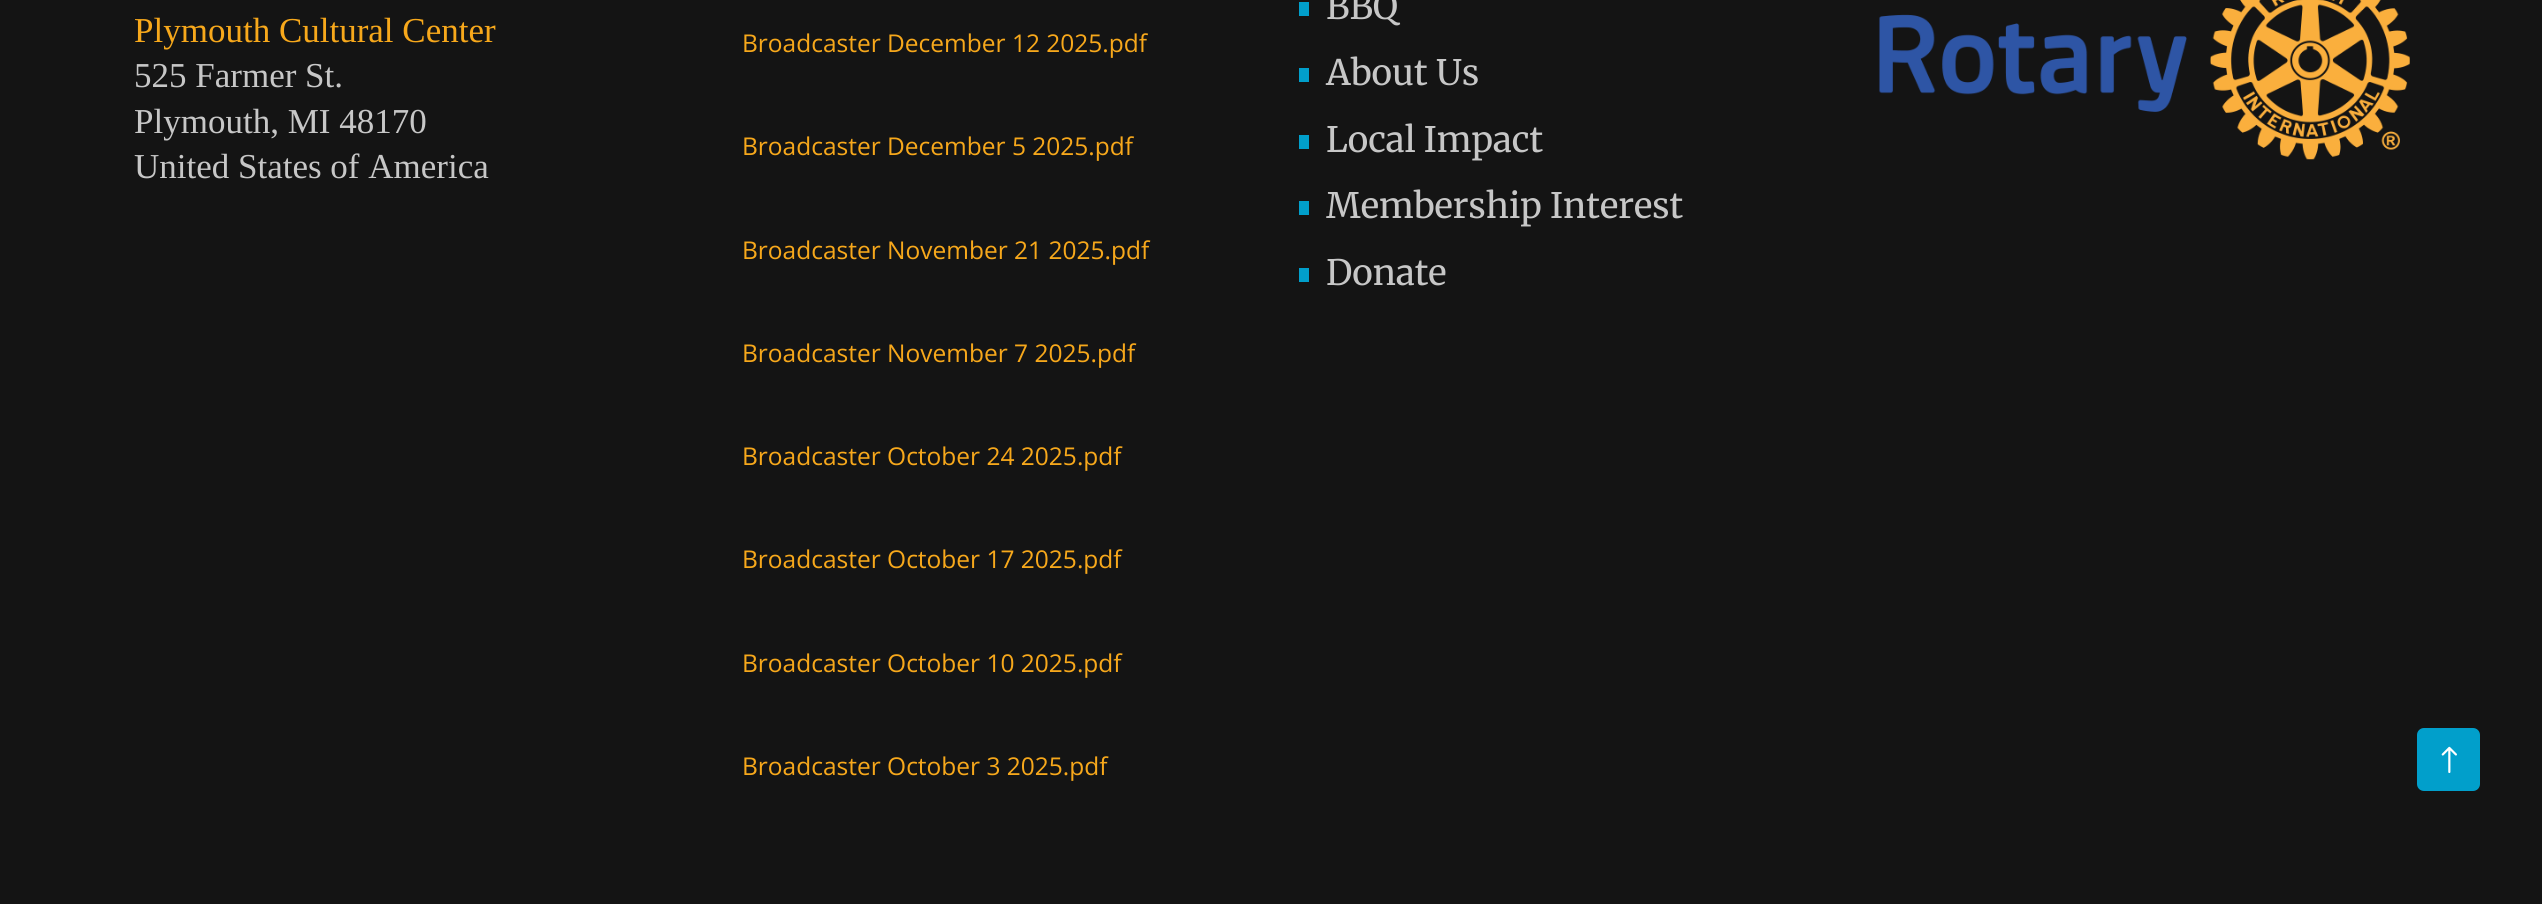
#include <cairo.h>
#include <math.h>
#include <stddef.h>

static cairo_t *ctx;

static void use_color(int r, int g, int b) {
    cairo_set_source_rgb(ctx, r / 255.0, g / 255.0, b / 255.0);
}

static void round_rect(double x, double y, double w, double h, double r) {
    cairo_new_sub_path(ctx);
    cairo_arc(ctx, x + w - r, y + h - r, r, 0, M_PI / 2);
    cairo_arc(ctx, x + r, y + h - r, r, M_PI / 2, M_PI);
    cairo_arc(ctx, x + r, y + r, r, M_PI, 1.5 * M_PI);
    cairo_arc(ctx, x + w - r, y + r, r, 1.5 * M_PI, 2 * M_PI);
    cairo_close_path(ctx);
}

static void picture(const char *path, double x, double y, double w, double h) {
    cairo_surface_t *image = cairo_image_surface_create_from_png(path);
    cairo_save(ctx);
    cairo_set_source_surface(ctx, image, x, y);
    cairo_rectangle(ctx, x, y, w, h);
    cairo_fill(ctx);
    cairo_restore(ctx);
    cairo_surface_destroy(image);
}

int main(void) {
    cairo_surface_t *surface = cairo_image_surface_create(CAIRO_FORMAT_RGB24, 2542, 904);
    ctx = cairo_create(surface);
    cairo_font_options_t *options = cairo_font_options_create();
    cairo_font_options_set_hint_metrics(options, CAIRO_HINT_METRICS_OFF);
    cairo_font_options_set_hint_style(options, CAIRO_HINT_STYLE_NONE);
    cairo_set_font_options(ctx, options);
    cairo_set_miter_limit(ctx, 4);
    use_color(20, 20, 20);
    cairo_paint(ctx);
    cairo_select_font_face(ctx, "Liberation Serif", CAIRO_FONT_SLANT_NORMAL, CAIRO_FONT_WEIGHT_NORMAL);
    cairo_set_font_size(ctx, 35);
    use_color(247, 168, 27);
    cairo_move_to(ctx, 134, 42);
    cairo_show_text(ctx, "Plymouth Cultural Center");
    use_color(199, 199, 199);
    cairo_move_to(ctx, 134, 87);
    cairo_show_text(ctx, "525 Farmer St.");
    cairo_move_to(ctx, 134, 133);
    cairo_show_text(ctx, "Plymouth, MI 48170");
    cairo_move_to(ctx, 134, 178);
    cairo_show_text(ctx, "United States of America");
    cairo_select_font_face(ctx, "Open Sans", CAIRO_FONT_SLANT_NORMAL, CAIRO_FONT_WEIGHT_NORMAL);
    cairo_set_font_size(ctx, 24.5);
    use_color(247, 168, 27);
    cairo_move_to(ctx, 742, 52);
    cairo_show_text(ctx, "Broadcaster December 12 2025.pdf");
    cairo_move_to(ctx, 742, 155);
    cairo_show_text(ctx, "Broadcaster December 5 2025.pdf");
    cairo_move_to(ctx, 742, 259);
    cairo_show_text(ctx, "Broadcaster November 21 2025.pdf");
    cairo_move_to(ctx, 742, 362);
    cairo_show_text(ctx, "Broadcaster November 7 2025.pdf");
    cairo_move_to(ctx, 742, 465);
    cairo_show_text(ctx, "Broadcaster October 24 2025.pdf");
    cairo_move_to(ctx, 742, 568);
    cairo_show_text(ctx, "Broadcaster October 17 2025.pdf");
    cairo_move_to(ctx, 742, 672);
    cairo_show_text(ctx, "Broadcaster October 10 2025.pdf");
    cairo_move_to(ctx, 742, 775);
    cairo_show_text(ctx, "Broadcaster October 3 2025.pdf");
    use_color(1, 159, 203);
    cairo_rectangle(ctx, 1299, 2, 10, 14);
    cairo_fill(ctx);
    cairo_select_font_face(ctx, "Merriweather", CAIRO_FONT_SLANT_NORMAL, CAIRO_FONT_WEIGHT_NORMAL);
    cairo_set_font_size(ctx, 35);
    use_color(199, 199, 199);
    cairo_move_to(ctx, 1326, 19);
    cairo_show_text(ctx, "BBQ");
    use_color(1, 159, 203);
    cairo_rectangle(ctx, 1299, 68, 10, 14);
    cairo_fill(ctx);
    use_color(199, 199, 199);
    cairo_move_to(ctx, 1326, 85);
    cairo_show_text(ctx, "About Us");
    use_color(1, 159, 203);
    cairo_rectangle(ctx, 1299, 135, 10, 14);
    cairo_fill(ctx);
    use_color(199, 199, 199);
    cairo_move_to(ctx, 1326, 152);
    cairo_show_text(ctx, "Local Impact");
    use_color(1, 159, 203);
    cairo_rectangle(ctx, 1299, 201, 10, 14);
    cairo_fill(ctx);
    use_color(199, 199, 199);
    cairo_move_to(ctx, 1326, 218);
    cairo_show_text(ctx, "Membership Interest");
    use_color(1, 159, 203);
    cairo_rectangle(ctx, 1299, 268, 10, 14);
    cairo_fill(ctx);
    use_color(199, 199, 199);
    cairo_move_to(ctx, 1326, 285);
    cairo_show_text(ctx, "Donate");
    picture("img1.png", 1879, 0, 531, 160);
    use_color(1, 159, 203);
    round_rect(2417, 728, 63, 63, 7);
    cairo_fill(ctx);
    picture("img2.png", 2441, 746, 16, 27);
    cairo_surface_write_to_png(surface, "result.png");
    cairo_font_options_destroy(options);
    cairo_destroy(ctx);
    cairo_surface_destroy(surface);
    return 0;
}
